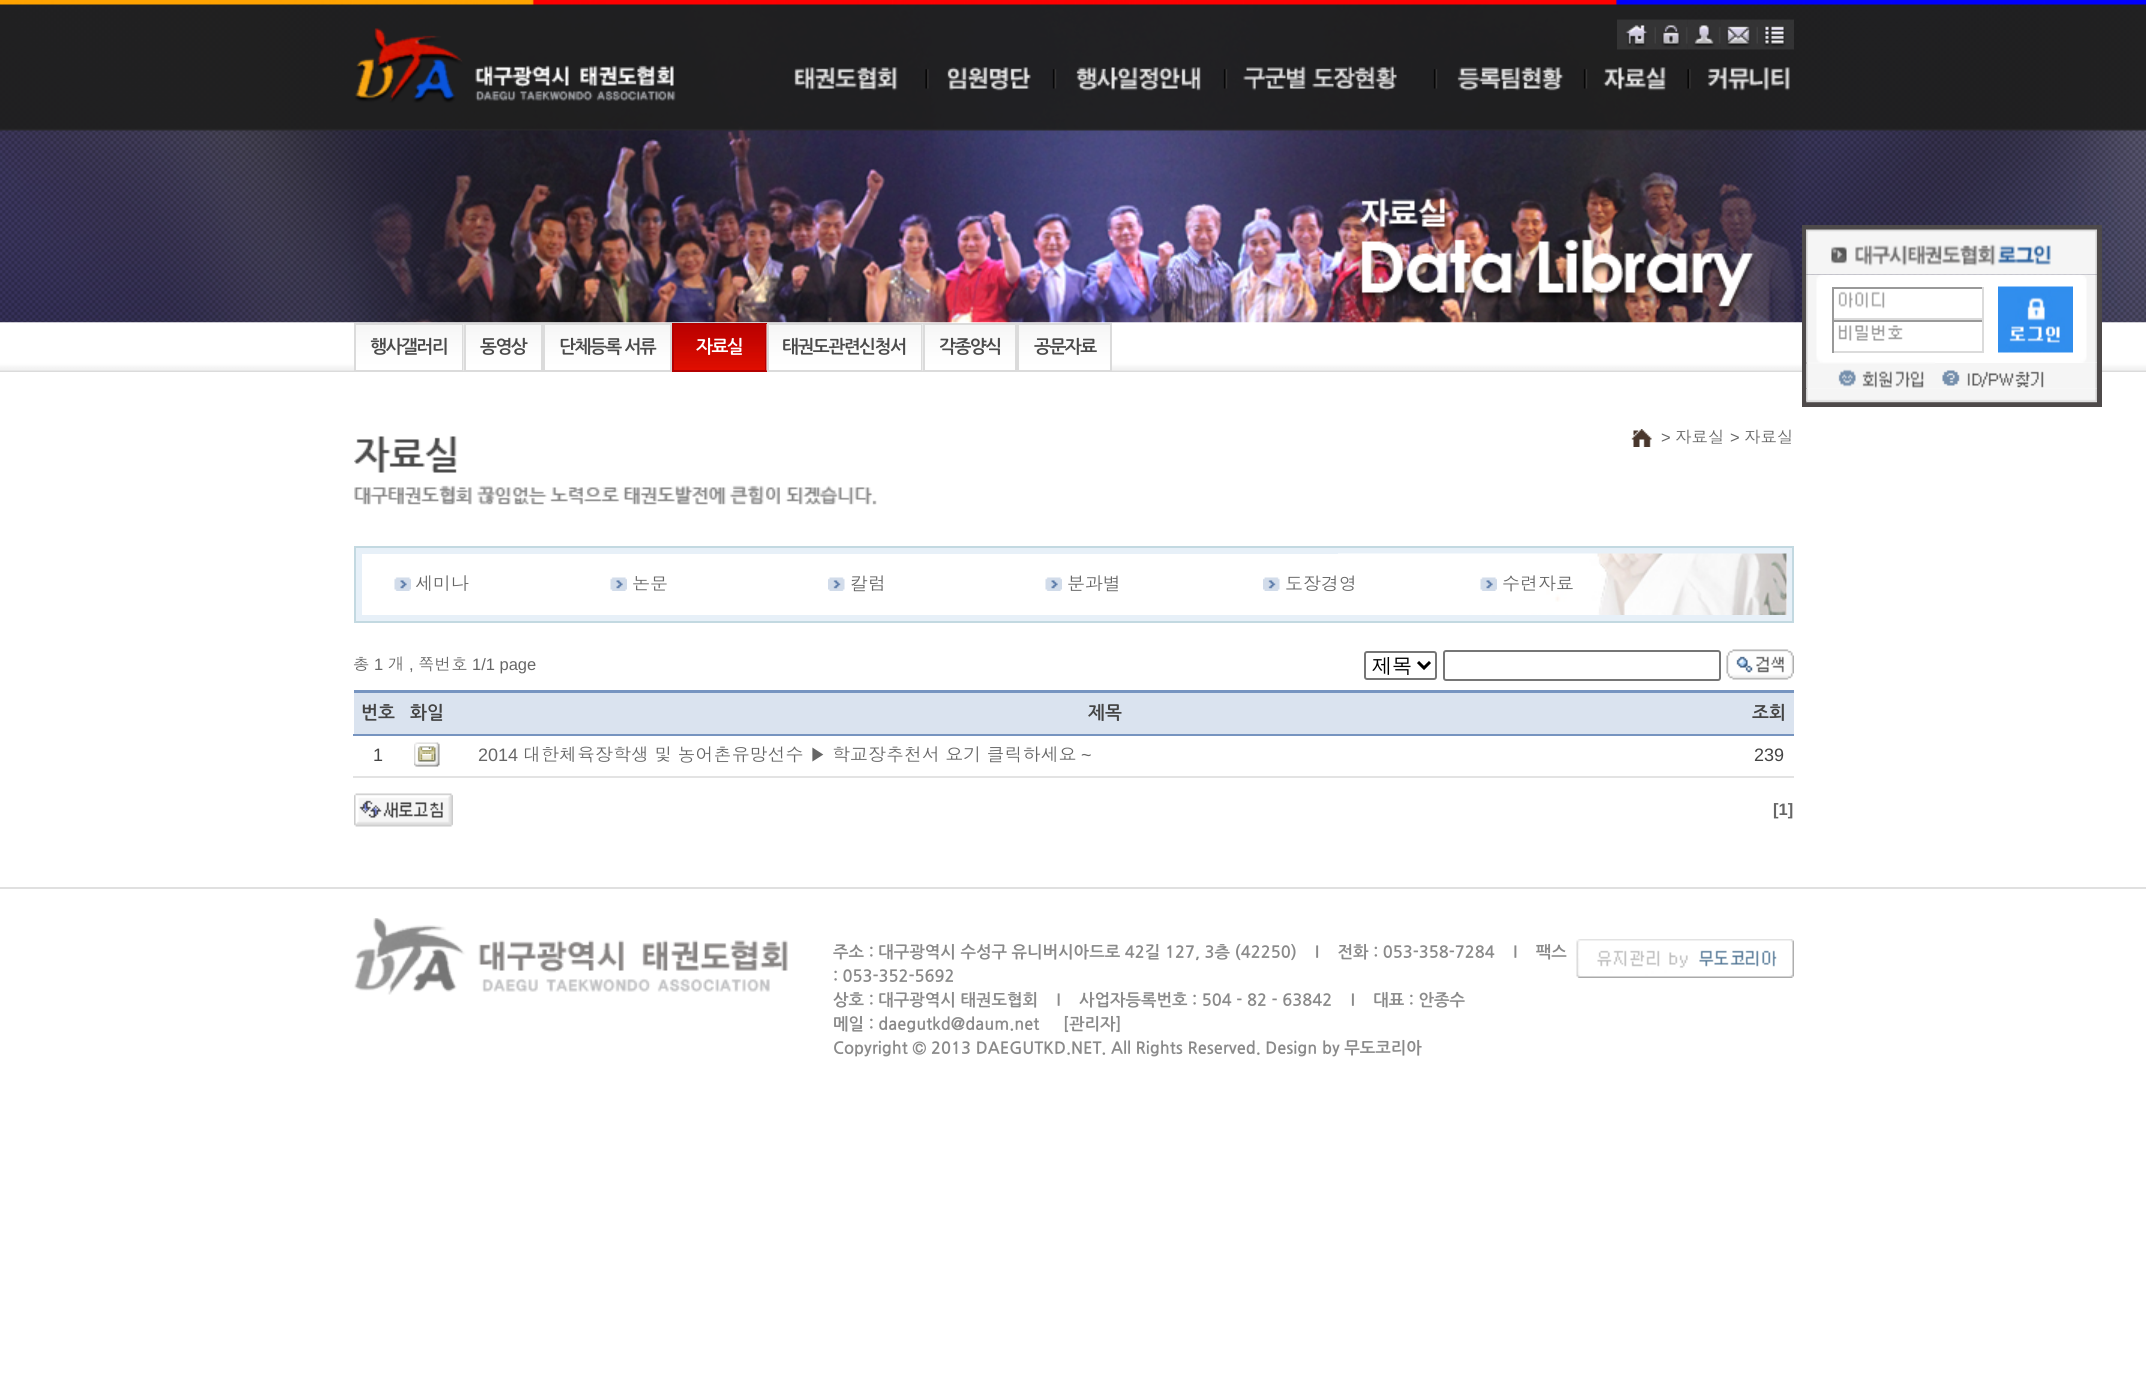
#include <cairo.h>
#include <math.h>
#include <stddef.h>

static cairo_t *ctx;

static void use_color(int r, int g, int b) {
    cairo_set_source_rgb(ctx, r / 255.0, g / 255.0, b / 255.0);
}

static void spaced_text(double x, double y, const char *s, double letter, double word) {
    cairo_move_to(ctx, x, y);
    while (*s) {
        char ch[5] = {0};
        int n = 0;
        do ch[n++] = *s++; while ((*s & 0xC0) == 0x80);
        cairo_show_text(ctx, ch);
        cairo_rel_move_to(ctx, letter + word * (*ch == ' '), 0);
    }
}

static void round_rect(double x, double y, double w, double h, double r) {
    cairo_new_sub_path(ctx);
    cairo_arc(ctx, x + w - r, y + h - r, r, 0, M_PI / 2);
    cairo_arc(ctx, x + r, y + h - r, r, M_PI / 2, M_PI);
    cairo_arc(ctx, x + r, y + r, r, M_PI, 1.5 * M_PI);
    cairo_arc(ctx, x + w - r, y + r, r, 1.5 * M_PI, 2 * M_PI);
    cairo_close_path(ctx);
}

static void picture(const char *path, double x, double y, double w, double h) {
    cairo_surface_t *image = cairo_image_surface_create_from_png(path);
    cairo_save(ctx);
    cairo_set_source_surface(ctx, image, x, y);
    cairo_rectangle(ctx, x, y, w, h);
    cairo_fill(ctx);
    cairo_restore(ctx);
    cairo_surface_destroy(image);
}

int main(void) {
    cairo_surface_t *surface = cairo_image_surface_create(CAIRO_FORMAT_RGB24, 2146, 1375);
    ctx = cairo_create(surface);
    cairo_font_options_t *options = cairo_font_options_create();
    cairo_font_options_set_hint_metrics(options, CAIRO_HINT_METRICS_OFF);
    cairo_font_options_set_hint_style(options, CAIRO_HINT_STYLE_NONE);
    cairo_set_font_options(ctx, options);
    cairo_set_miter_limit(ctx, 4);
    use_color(255, 255, 255);
    cairo_paint(ctx);
    picture("img17.png", 0, 4, 2146, 319);
    picture("img1.png", 0, 4, 2146, 127);
    picture("img2.png", 0, 0, 2146, 5);
    picture("img3.png", 355, 28, 321, 75);
    picture("img4.png", 1617, 19, 39, 31);
    picture("img5.png", 1656, 19, 32, 31);
    picture("img6.png", 1687, 19, 34, 31);
    picture("img7.png", 1720, 19, 38, 31);
    picture("img8.png", 1758, 19, 36, 31);
    picture("img9.png", 925, 69, 766, 20);
    picture("img10.png", 794, 67, 104, 24);
    picture("img11.png", 947, 67, 84, 24);
    picture("img12.png", 1076, 67, 125, 24);
    picture("img13.png", 1243, 65, 154, 26);
    picture("img14.png", 1457, 67, 107, 24);
    picture("img15.png", 1603, 67, 63, 24);
    picture("img16.png", 1707, 67, 83, 24);
    picture("img18.png", 0, 322, 2146, 50);
    picture("img19.png", 1356, 197, 400, 115);
    picture("img20.png", 356, 325, 106, 45);
    cairo_rectangle(ctx, 355, 324, 108, 47);
    use_color(219, 219, 219);
    cairo_stroke(ctx);
    cairo_select_font_face(ctx, "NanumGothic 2", CAIRO_FONT_SLANT_NORMAL, CAIRO_FONT_WEIGHT_BOLD);
    cairo_set_font_size(ctx, 18);
    use_color(75, 75, 75);
    spaced_text(370, 353, "행사갤러리", -1.5, 0);
    picture("img21.png", 463, 324, 78, 47);
    cairo_rectangle(ctx, 465, 324, 77, 47);
    use_color(219, 219, 219);
    cairo_stroke(ctx);
    use_color(75, 75, 75);
    spaced_text(480, 353, "동영상", -1.5, 0);
    picture("img22.png", 545, 325, 125, 45);
    cairo_rectangle(ctx, 544, 324, 127, 47);
    use_color(219, 219, 219);
    cairo_stroke(ctx);
    use_color(75, 75, 75);
    spaced_text(559, 353, "단체등록 서류", -1.5, 0);
    picture("img23.png", 674, 325, 91, 45);
    cairo_rectangle(ctx, 673, 324, 93, 47);
    use_color(180, 0, 0);
    cairo_stroke(ctx);
    use_color(255, 255, 255);
    spaced_text(696, 353, "자료실", -1.5, 0);
    picture("img24.png", 766, 324, 155, 47);
    cairo_rectangle(ctx, 768, 324, 154, 47);
    use_color(219, 219, 219);
    cairo_stroke(ctx);
    use_color(75, 75, 75);
    spaced_text(782, 353, "태권도관련신청서", -1.5, 0);
    picture("img25.png", 922, 324, 93, 47);
    cairo_rectangle(ctx, 924, 324, 92, 47);
    use_color(219, 219, 219);
    cairo_stroke(ctx);
    use_color(75, 75, 75);
    spaced_text(939, 353, "각종양식", -1.5, 0);
    picture("img26.png", 1019, 325, 91, 45);
    cairo_rectangle(ctx, 1018, 324, 93, 47);
    use_color(219, 219, 219);
    cairo_stroke(ctx);
    use_color(75, 75, 75);
    spaced_text(1034, 353, "공문자료", -1.5, 0);
    cairo_rectangle(ctx, 1804.5, 227.5, 295, 177);
    use_color(78, 74, 74);
    cairo_set_line_width(ctx, 5);
    cairo_stroke(ctx);
    picture("img28.png", 1806, 274, 291, 90);
    picture("img27.png", 1806, 229, 291, 46);
    picture("img29.png", 1838, 291, 47, 18);
    use_color(153, 153, 153);
    cairo_rectangle(ctx, 1832, 287, 151, 2);
    cairo_fill(ctx);
    use_color(219, 219, 219);
    cairo_rectangle(ctx, 1982, 287, 2, 33);
    cairo_fill(ctx);
    cairo_rectangle(ctx, 1832, 318, 151, 2);
    cairo_fill(ctx);
    use_color(153, 153, 153);
    cairo_rectangle(ctx, 1832, 287, 2, 33);
    cairo_fill(ctx);
    picture("img30.png", 1998, 286, 75, 67);
    picture("img31.png", 1838, 325, 65, 16);
    cairo_rectangle(ctx, 1832, 320, 151, 2);
    cairo_fill(ctx);
    use_color(219, 219, 219);
    cairo_rectangle(ctx, 1982, 320, 2, 33);
    cairo_fill(ctx);
    cairo_rectangle(ctx, 1832, 351, 151, 2);
    cairo_fill(ctx);
    use_color(153, 153, 153);
    cairo_rectangle(ctx, 1832, 320, 2, 33);
    cairo_fill(ctx);
    picture("img32.png", 1806, 362, 129, 27);
    picture("img33.png", 1935, 363, 162, 26);
    picture("img34.png", 1806, 388, 291, 15);
    picture("img35.png", 354, 485, 523, 20);
    picture("img36.png", 354, 436, 103, 37);
    picture("img37.png", 1631, 429, 21, 18);
    cairo_select_font_face(ctx, "Liberation Sans", CAIRO_FONT_SLANT_NORMAL, CAIRO_FONT_WEIGHT_NORMAL);
    cairo_set_font_size(ctx, 16.5);
    use_color(102, 102, 102);
    cairo_move_to(ctx, 1661, 443);
    cairo_show_text(ctx, ">");
    cairo_select_font_face(ctx, "Dotum", CAIRO_FONT_SLANT_NORMAL, CAIRO_FONT_WEIGHT_NORMAL);
    cairo_move_to(ctx, 1675, 443);
    cairo_show_text(ctx, "자료실");
    cairo_select_font_face(ctx, "Liberation Sans", CAIRO_FONT_SLANT_NORMAL, CAIRO_FONT_WEIGHT_NORMAL);
    cairo_move_to(ctx, 1730, 443);
    cairo_show_text(ctx, ">");
    cairo_select_font_face(ctx, "Dotum", CAIRO_FONT_SLANT_NORMAL, CAIRO_FONT_WEIGHT_NORMAL);
    cairo_move_to(ctx, 1744, 443);
    cairo_show_text(ctx, "자료실");
    use_color(231, 240, 248);
    cairo_rectangle(ctx, 355, 547, 1438, 75);
    cairo_fill_preserve(ctx);
    use_color(195, 217, 225);
    cairo_set_line_width(ctx, 2);
    cairo_stroke(ctx);
    use_color(255, 255, 255);
    cairo_rectangle(ctx, 362, 554, 1425, 61);
    cairo_fill(ctx);
    picture("img38.png", 1338, 553, 449, 62);
    picture("img39.png", 394, 577, 17, 14);
    cairo_set_font_size(ctx, 18);
    use_color(102, 102, 102);
    cairo_move_to(ctx, 415, 590);
    cairo_show_text(ctx, "세미나");
    picture("img39.png", 610, 577, 17, 14);
    cairo_move_to(ctx, 632, 590);
    cairo_show_text(ctx, "논문");
    picture("img40.png", 828, 577, 17, 14);
    cairo_move_to(ctx, 850, 590);
    cairo_show_text(ctx, "칼럼");
    picture("img39.png", 1045, 577, 17, 14);
    cairo_move_to(ctx, 1067, 590);
    cairo_show_text(ctx, "분과별");
    picture("img41.png", 1263, 577, 17, 14);
    cairo_move_to(ctx, 1285, 590);
    cairo_show_text(ctx, "도장경영");
    picture("img39.png", 1480, 577, 17, 14);
    cairo_move_to(ctx, 1502, 590);
    cairo_show_text(ctx, "수련자료");
    cairo_set_font_size(ctx, 16.5);
    cairo_move_to(ctx, 353, 670);
    cairo_show_text(ctx, "총");
    cairo_select_font_face(ctx, "Liberation Sans", CAIRO_FONT_SLANT_NORMAL, CAIRO_FONT_WEIGHT_NORMAL);
    cairo_move_to(ctx, 374, 670);
    cairo_show_text(ctx, "1");
    cairo_select_font_face(ctx, "Dotum", CAIRO_FONT_SLANT_NORMAL, CAIRO_FONT_WEIGHT_NORMAL);
    cairo_move_to(ctx, 388, 670);
    cairo_show_text(ctx, "개");
    cairo_select_font_face(ctx, "Liberation Sans", CAIRO_FONT_SLANT_NORMAL, CAIRO_FONT_WEIGHT_NORMAL);
    cairo_move_to(ctx, 409, 670);
    cairo_show_text(ctx, ",");
    cairo_select_font_face(ctx, "Dotum", CAIRO_FONT_SLANT_NORMAL, CAIRO_FONT_WEIGHT_NORMAL);
    cairo_move_to(ctx, 418, 670);
    cairo_show_text(ctx, "쪽번호");
    cairo_select_font_face(ctx, "Liberation Sans", CAIRO_FONT_SLANT_NORMAL, CAIRO_FONT_WEIGHT_NORMAL);
    cairo_move_to(ctx, 472, 670);
    cairo_show_text(ctx, "1/1 page");
    round_rect(1365, 652, 71, 27, 2);
    use_color(118, 118, 118);
    cairo_stroke(ctx);
    cairo_new_path(ctx);
    cairo_move_to(ctx, 1418, 662);
    cairo_line_to(ctx, 1424, 668);
    cairo_line_to(ctx, 1430, 662);
    use_color(0, 0, 0);
    cairo_set_line_width(ctx, 3);
    cairo_stroke(ctx);
    cairo_select_font_face(ctx, "WenQuanYi Zen Hei Medium", CAIRO_FONT_SLANT_NORMAL, CAIRO_FONT_WEIGHT_NORMAL);
    cairo_set_font_size(ctx, 20);
    cairo_move_to(ctx, 1372, 672);
    cairo_show_text(ctx, "제목");
    round_rect(1444, 651, 276, 29, 2);
    use_color(118, 118, 118);
    cairo_set_line_width(ctx, 2);
    cairo_stroke(ctx);
    picture("img42.png", 1726, 649, 68, 31);
    use_color(118, 148, 192);
    cairo_rectangle(ctx, 354, 690, 1440, 3);
    cairo_fill(ctx);
    use_color(218, 227, 239);
    cairo_rectangle(ctx, 354, 693, 1440, 41);
    cairo_fill(ctx);
    cairo_select_font_face(ctx, "NanumGothic 2", CAIRO_FONT_SLANT_NORMAL, CAIRO_FONT_WEIGHT_BOLD);
    cairo_set_font_size(ctx, 18);
    use_color(68, 68, 68);
    cairo_move_to(ctx, 361, 719);
    cairo_show_text(ctx, "번호");
    cairo_move_to(ctx, 410, 719);
    cairo_show_text(ctx, "화일");
    cairo_move_to(ctx, 1088, 719);
    cairo_show_text(ctx, "제목");
    use_color(118, 148, 192);
    cairo_rectangle(ctx, 353, 734, 1441, 2);
    cairo_fill(ctx);
    use_color(68, 68, 68);
    cairo_move_to(ctx, 1752, 719);
    cairo_show_text(ctx, "조회");
    cairo_select_font_face(ctx, "Liberation Sans", CAIRO_FONT_SLANT_NORMAL, CAIRO_FONT_WEIGHT_NORMAL);
    cairo_move_to(ctx, 373, 761);
    cairo_show_text(ctx, "1");
    picture("img43.png", 414, 742, 26, 25);
    use_color(102, 102, 102);
    cairo_move_to(ctx, 478, 761);
    cairo_show_text(ctx, "2014");
    cairo_select_font_face(ctx, "Dotum", CAIRO_FONT_SLANT_NORMAL, CAIRO_FONT_WEIGHT_NORMAL);
    spaced_text(523, 761, "대한체육장학생 및 농어촌유망선수 ▶ 학교장추천서 요기 클릭하세요", 0, -0.75);
    cairo_select_font_face(ctx, "Liberation Sans", CAIRO_FONT_SLANT_NORMAL, CAIRO_FONT_WEIGHT_NORMAL);
    cairo_move_to(ctx, 1081, 761);
    cairo_show_text(ctx, "~");
    use_color(227, 227, 227);
    cairo_rectangle(ctx, 353, 776, 1441, 2);
    cairo_fill(ctx);
    use_color(68, 68, 68);
    cairo_move_to(ctx, 1754, 761);
    cairo_show_text(ctx, "239");
    picture("img44.png", 354, 793, 99, 34);
    cairo_select_font_face(ctx, "Liberation Sans", CAIRO_FONT_SLANT_NORMAL, CAIRO_FONT_WEIGHT_BOLD);
    cairo_set_font_size(ctx, 16.5);
    use_color(102, 102, 102);
    cairo_move_to(ctx, 1773, 815);
    cairo_show_text(ctx, "[1]");
    use_color(224, 224, 224);
    cairo_rectangle(ctx, 0, 887, 2146, 2);
    cairo_fill(ctx);
    picture("img45.png", 354, 918, 434, 77);
    cairo_select_font_face(ctx, "NanumGothic", CAIRO_FONT_SLANT_NORMAL, CAIRO_FONT_WEIGHT_BOLD);
    use_color(138, 138, 138);
    cairo_move_to(ctx, 833, 957);
    cairo_show_text(ctx, "주소 : 대구광역시 수성구 유니버시아드로 42길 127, 3층 (42250)    I    전화 : 053-358-7284    I    팩스");
    cairo_move_to(ctx, 833, 981);
    cairo_show_text(ctx, ": 053-352-5692");
    cairo_move_to(ctx, 833, 1005);
    cairo_show_text(ctx, "상호 : 대구광역시 태권도협회    I    사업자등록번호 : 504 - 82 - 63842    I    대표 : 안종수");
    cairo_move_to(ctx, 833, 1029);
    cairo_show_text(ctx, "메일 : daegutkd@daum.net");
    cairo_move_to(ctx, 1063, 1029);
    cairo_show_text(ctx, "[관리자]");
    cairo_move_to(ctx, 833, 1053);
    cairo_show_text(ctx, "Copyright © 2013 DAEGUTKD.NET. All Rights Reserved. Design by 무도코리아");
    picture("img46.png", 1576, 939, 218, 39);
    cairo_surface_write_to_png(surface, "result.png");
    cairo_font_options_destroy(options);
    cairo_destroy(ctx);
    cairo_surface_destroy(surface);
    return 0;
}
